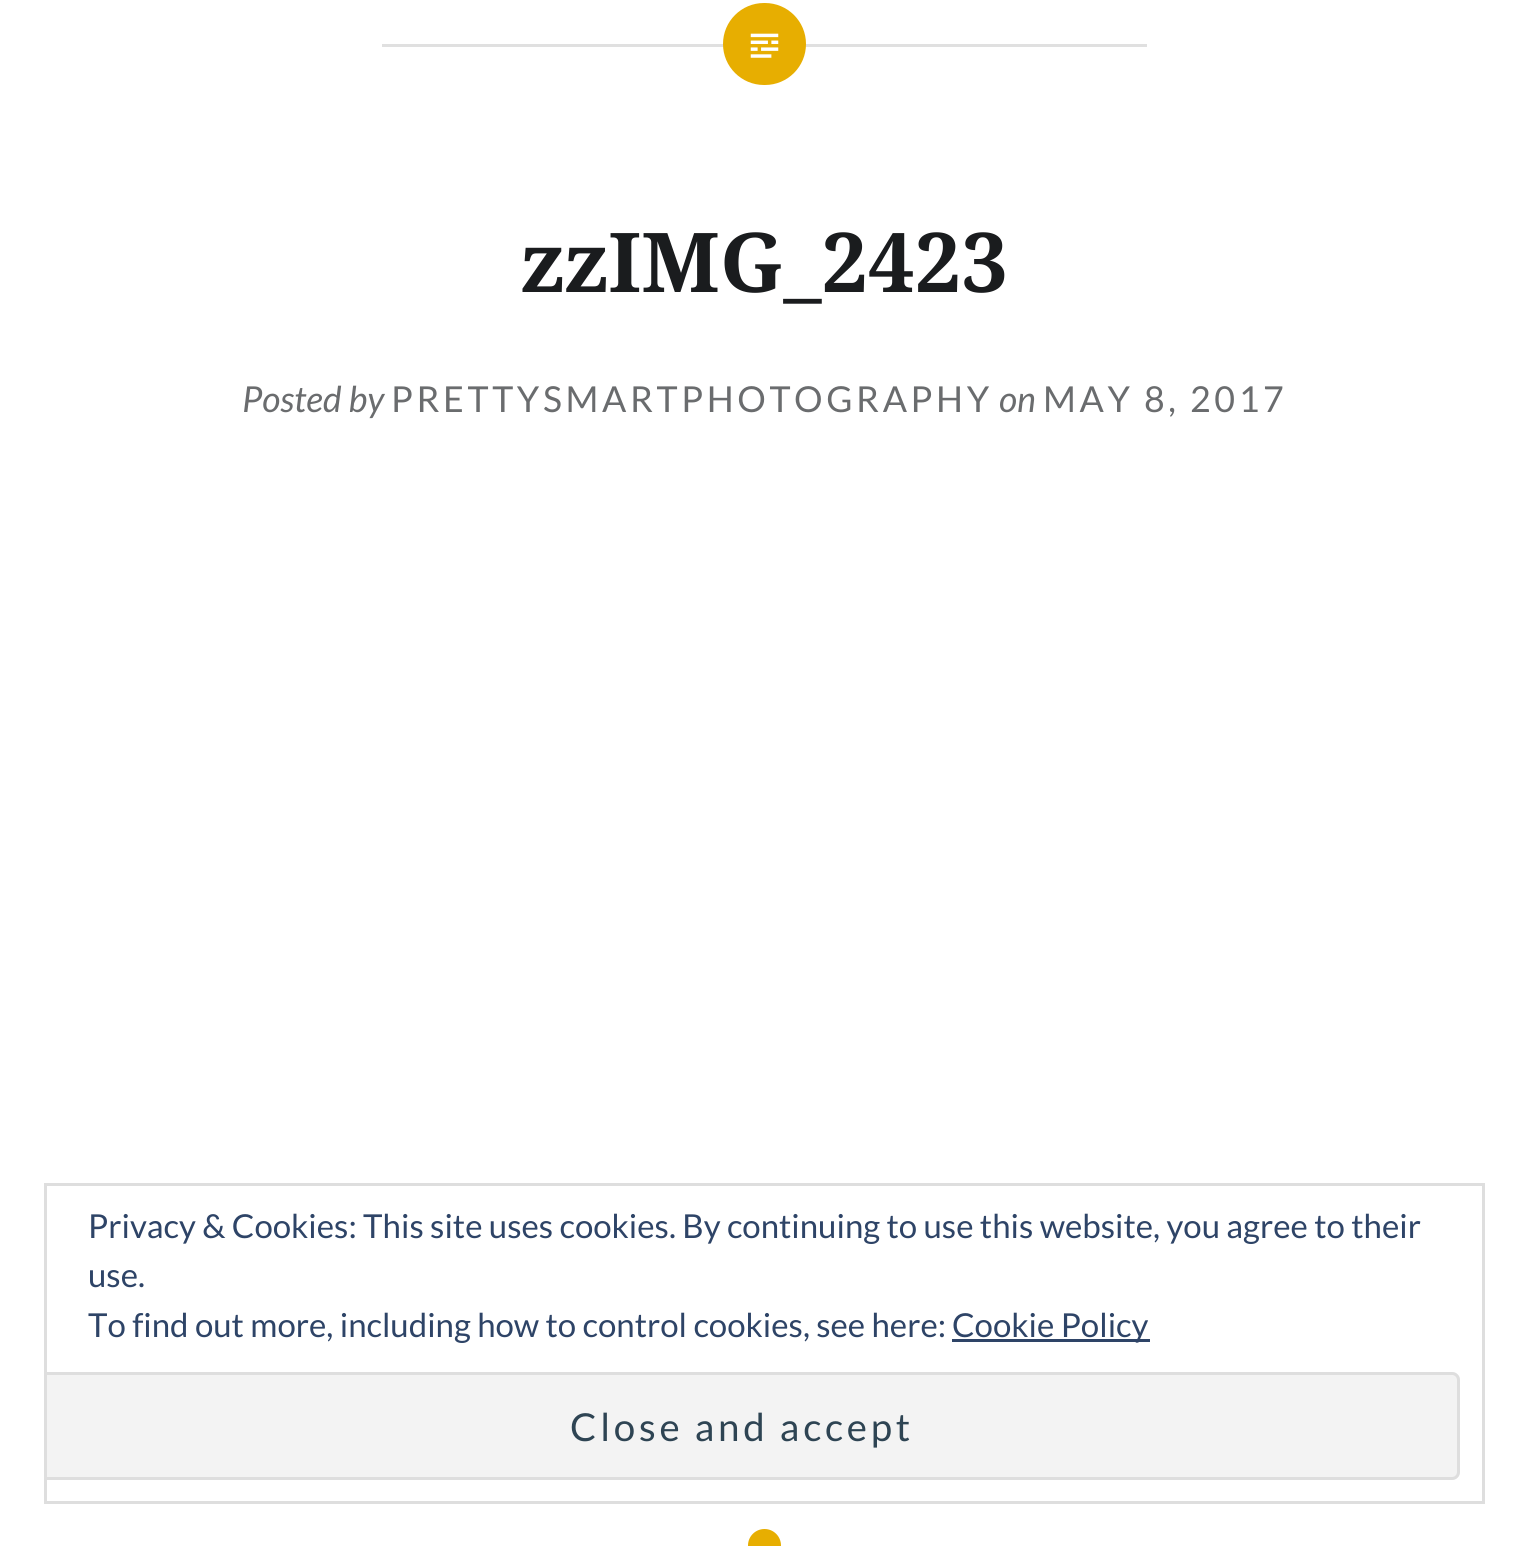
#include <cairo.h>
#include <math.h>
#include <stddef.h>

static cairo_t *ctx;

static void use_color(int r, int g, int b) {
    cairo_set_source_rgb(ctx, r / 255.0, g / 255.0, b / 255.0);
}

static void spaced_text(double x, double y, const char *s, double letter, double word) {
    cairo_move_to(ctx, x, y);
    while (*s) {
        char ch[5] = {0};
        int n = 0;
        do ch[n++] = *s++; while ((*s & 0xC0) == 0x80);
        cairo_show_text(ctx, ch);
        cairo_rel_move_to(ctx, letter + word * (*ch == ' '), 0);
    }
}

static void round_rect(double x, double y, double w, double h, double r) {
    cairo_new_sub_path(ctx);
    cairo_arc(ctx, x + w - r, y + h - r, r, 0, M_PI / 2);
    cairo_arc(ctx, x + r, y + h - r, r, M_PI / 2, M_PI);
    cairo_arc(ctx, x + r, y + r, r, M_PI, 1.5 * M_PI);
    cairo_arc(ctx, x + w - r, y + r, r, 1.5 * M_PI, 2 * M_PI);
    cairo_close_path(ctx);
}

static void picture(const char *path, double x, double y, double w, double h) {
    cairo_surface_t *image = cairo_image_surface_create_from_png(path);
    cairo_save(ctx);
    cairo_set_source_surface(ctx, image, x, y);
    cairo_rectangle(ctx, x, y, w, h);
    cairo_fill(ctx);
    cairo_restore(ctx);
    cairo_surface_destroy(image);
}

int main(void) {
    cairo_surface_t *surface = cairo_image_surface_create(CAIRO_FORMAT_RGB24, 1527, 1546);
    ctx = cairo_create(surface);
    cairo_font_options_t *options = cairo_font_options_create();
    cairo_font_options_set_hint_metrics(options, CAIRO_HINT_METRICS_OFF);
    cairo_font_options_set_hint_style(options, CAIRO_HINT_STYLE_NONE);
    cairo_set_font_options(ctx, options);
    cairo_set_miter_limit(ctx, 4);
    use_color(255, 255, 255);
    cairo_paint(ctx);
    use_color(224, 224, 224);
    cairo_rectangle(ctx, 382, 44, 765, 3);
    cairo_fill(ctx);
    use_color(231, 174, 1);
    round_rect(723, 3, 83, 82, 41);
    cairo_fill(ctx);
    picture("img1.png", 750, 33, 29, 25);
    cairo_select_font_face(ctx, "Noto Serif", CAIRO_FONT_SLANT_NORMAL, CAIRO_FONT_WEIGHT_BOLD);
    cairo_set_font_size(ctx, 82.5);
    use_color(26, 28, 30);
    cairo_move_to(ctx, 521, 292);
    cairo_show_text(ctx, "zzIMG_2423");
    cairo_select_font_face(ctx, "Lato", CAIRO_FONT_SLANT_ITALIC, CAIRO_FONT_WEIGHT_NORMAL);
    cairo_set_font_size(ctx, 35.75);
    use_color(106, 108, 110);
    cairo_move_to(ctx, 242, 412);
    cairo_show_text(ctx, "Posted by");
    cairo_select_font_face(ctx, "Lato", CAIRO_FONT_SLANT_NORMAL, CAIRO_FONT_WEIGHT_NORMAL);
    spaced_text(391, 412, "PRETTYSMARTPHOTOGRAPHY", 3.6, 0);
    cairo_select_font_face(ctx, "Lato", CAIRO_FONT_SLANT_ITALIC, CAIRO_FONT_WEIGHT_NORMAL);
    cairo_move_to(ctx, 999, 412);
    cairo_show_text(ctx, "on");
    cairo_select_font_face(ctx, "Lato", CAIRO_FONT_SLANT_NORMAL, CAIRO_FONT_WEIGHT_NORMAL);
    spaced_text(1043, 412, "MAY 8, 2017", 3.6, 0);
    use_color(231, 174, 1);
    cairo_new_path(ctx);
    cairo_arc(ctx, 764.5, 1545.5, 16.5, 0, 2 * M_PI);
    cairo_fill(ctx);
    cairo_rectangle(ctx, 45.5, 1184.5, 1438, 318);
    use_color(222, 222, 222);
    cairo_set_line_width(ctx, 3);
    cairo_stroke(ctx);
    cairo_set_font_size(ctx, 33);
    use_color(46, 68, 103);
    cairo_move_to(ctx, 88, 1238);
    cairo_show_text(ctx, "Privacy & Cookies: This site uses cookies. By continuing to use this website, you agree to their");
    cairo_move_to(ctx, 88, 1287);
    cairo_show_text(ctx, "use.");
    cairo_move_to(ctx, 88, 1337);
    cairo_show_text(ctx, "To find out more, including how to control cookies, see here:");
    cairo_rectangle(ctx, 952, 1339, 198, 3);
    cairo_fill(ctx);
    cairo_move_to(ctx, 952, 1337);
    cairo_show_text(ctx, "Cookie Policy");
    use_color(243, 243, 243);
    cairo_new_path(ctx);
    cairo_move_to(ctx, 47, 1372);
    cairo_line_to(ctx, 1452, 1372);
    cairo_curve_to(ctx, 1456.5, 1372, 1460, 1375.5, 1460, 1380);
    cairo_line_to(ctx, 1460, 1472);
    cairo_curve_to(ctx, 1460, 1476.5, 1456.5, 1480, 1452, 1480);
    cairo_line_to(ctx, 47, 1480);
    cairo_close_path(ctx);
    cairo_fill(ctx);
    cairo_save(ctx);
    cairo_rectangle(ctx, 47, 1185, 1435, 317);
    cairo_clip(ctx);
    round_rect(26.5, 1373.5, 1432, 105, 6.5);
    use_color(222, 222, 222);
    cairo_stroke(ctx);
    cairo_restore(ctx);
    cairo_set_font_size(ctx, 38.5);
    use_color(46, 68, 83);
    spaced_text(570, 1441, "Close and accept", 3.8, 0);
    cairo_surface_write_to_png(surface, "result.png");
    cairo_font_options_destroy(options);
    cairo_destroy(ctx);
    cairo_surface_destroy(surface);
    return 0;
}
